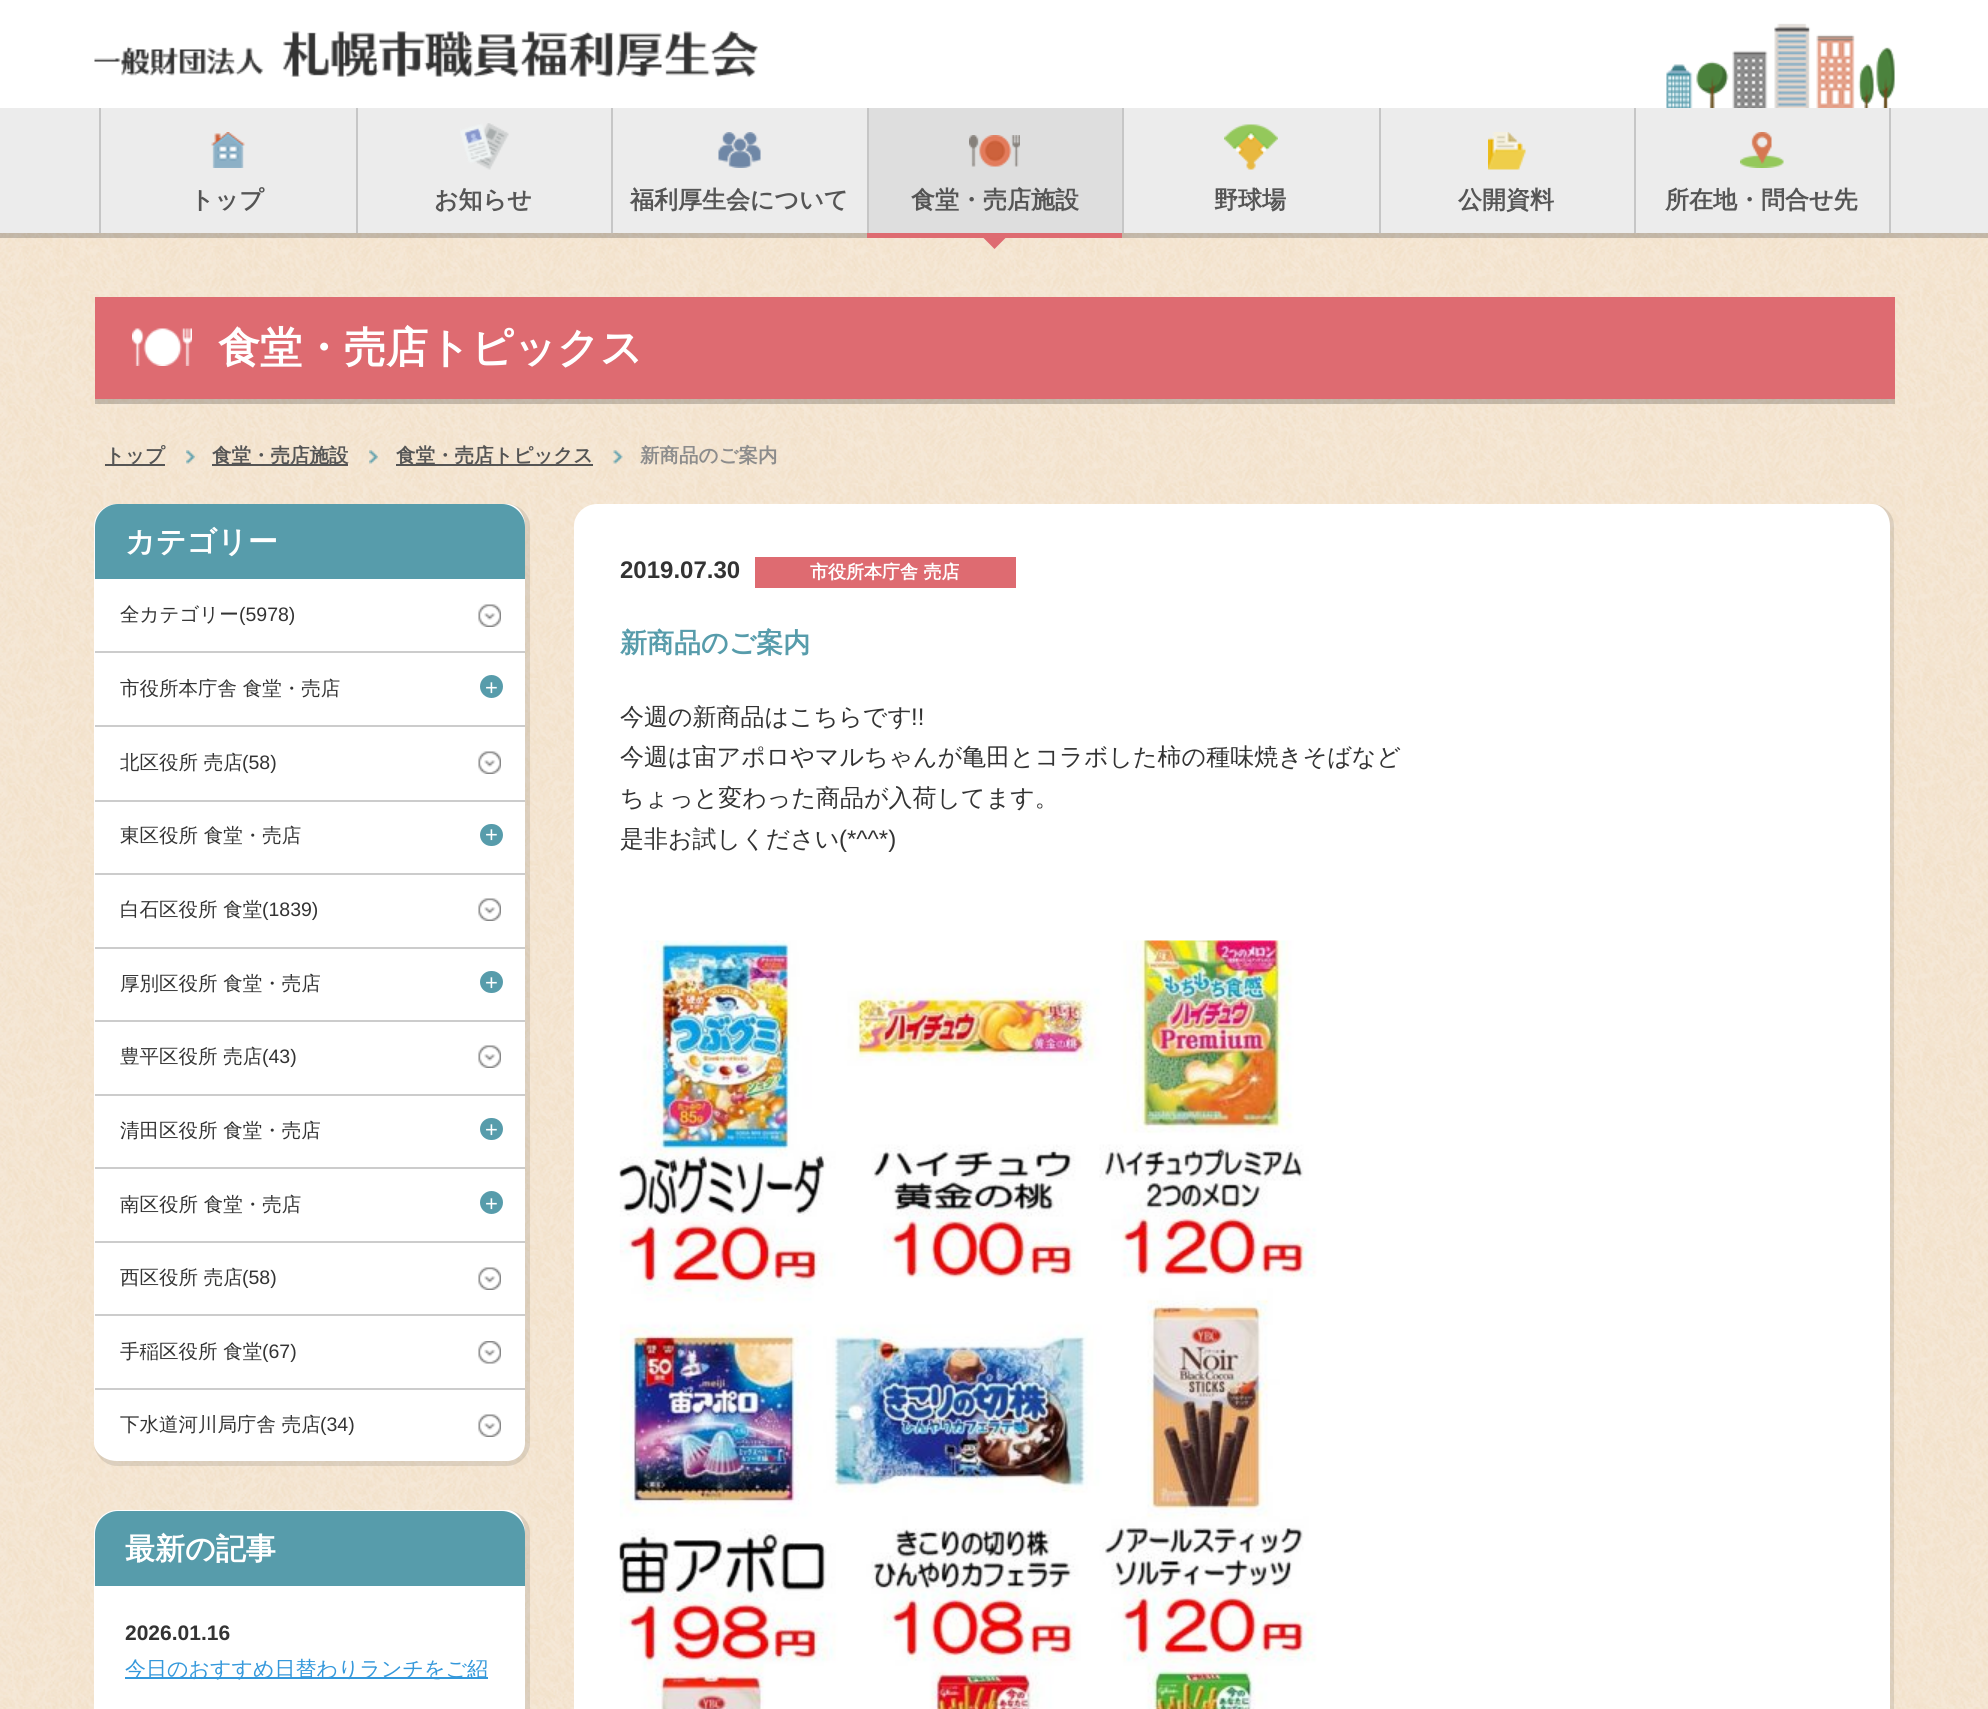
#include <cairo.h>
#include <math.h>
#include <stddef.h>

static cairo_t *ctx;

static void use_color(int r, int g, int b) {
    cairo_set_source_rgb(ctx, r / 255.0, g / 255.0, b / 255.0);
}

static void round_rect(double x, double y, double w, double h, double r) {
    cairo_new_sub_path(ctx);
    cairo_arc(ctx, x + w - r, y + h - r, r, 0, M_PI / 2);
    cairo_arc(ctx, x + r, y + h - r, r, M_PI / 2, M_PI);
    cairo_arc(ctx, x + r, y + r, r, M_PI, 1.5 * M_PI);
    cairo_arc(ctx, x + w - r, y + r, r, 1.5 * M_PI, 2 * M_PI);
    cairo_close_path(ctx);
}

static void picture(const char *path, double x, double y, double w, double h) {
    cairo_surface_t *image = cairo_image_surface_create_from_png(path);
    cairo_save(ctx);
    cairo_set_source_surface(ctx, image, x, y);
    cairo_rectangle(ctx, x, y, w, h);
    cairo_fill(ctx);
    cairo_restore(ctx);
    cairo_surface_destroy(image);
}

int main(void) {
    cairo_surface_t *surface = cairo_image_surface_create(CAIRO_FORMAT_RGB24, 1988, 1709);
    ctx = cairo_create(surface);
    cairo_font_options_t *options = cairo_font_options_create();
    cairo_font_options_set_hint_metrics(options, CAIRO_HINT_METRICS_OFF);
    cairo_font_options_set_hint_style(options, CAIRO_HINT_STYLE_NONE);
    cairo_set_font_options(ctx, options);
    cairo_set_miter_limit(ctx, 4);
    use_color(255, 255, 255);
    cairo_paint(ctx);
    picture("img1.png", 0, 233, 1988, 1476);
    picture("img2.png", 94, 31, 664, 46);
    picture("img3.png", 1666, 23, 229, 85);
    use_color(236, 236, 236);
    cairo_rectangle(ctx, 0, 108, 1988, 125);
    cairo_fill(ctx);
    cairo_set_source_rgba(ctx, 0, 0, 0, 0.2);
    cairo_rectangle(ctx, 0, 233, 1988, 5);
    cairo_fill(ctx);
    use_color(198, 198, 198);
    cairo_rectangle(ctx, 99, 108, 2, 125);
    cairo_fill(ctx);
    picture("img4.png", 211, 132, 34, 36);
    cairo_select_font_face(ctx, "WenQuanYi Zen Hei", CAIRO_FONT_SLANT_NORMAL, CAIRO_FONT_WEIGHT_BOLD);
    cairo_set_font_size(ctx, 24);
    use_color(85, 85, 85);
    cairo_move_to(ctx, 190, 208);
    cairo_show_text(ctx, "トップ");
    use_color(198, 198, 198);
    cairo_rectangle(ctx, 356, 108, 2, 125);
    cairo_fill(ctx);
    picture("img5.png", 460, 123, 49, 47);
    use_color(85, 85, 85);
    cairo_move_to(ctx, 434, 208);
    cairo_show_text(ctx, "お知らせ");
    use_color(198, 198, 198);
    cairo_rectangle(ctx, 611, 108, 2, 125);
    cairo_fill(ctx);
    picture("img6.png", 718, 132, 43, 36);
    use_color(85, 85, 85);
    cairo_move_to(ctx, 630, 208);
    cairo_show_text(ctx, "福利厚生会について");
    use_color(198, 198, 198);
    cairo_rectangle(ctx, 867, 108, 2, 125);
    cairo_fill(ctx);
    use_color(222, 222, 222);
    cairo_rectangle(ctx, 869, 108, 253, 125);
    cairo_fill(ctx);
    picture("img7.png", 969, 135, 51, 32);
    use_color(85, 85, 85);
    cairo_move_to(ctx, 911, 208);
    cairo_show_text(ctx, "食堂・売店施設");
    use_color(222, 107, 113);
    cairo_rectangle(ctx, 867, 233, 255, 5);
    cairo_fill(ctx);
    cairo_new_path(ctx);
    cairo_move_to(ctx, 982.5, 237);
    cairo_line_to(ctx, 1006.5, 237);
    cairo_line_to(ctx, 994.5, 249);
    cairo_close_path(ctx);
    cairo_fill(ctx);
    use_color(198, 198, 198);
    cairo_rectangle(ctx, 1122, 108, 2, 125);
    cairo_fill(ctx);
    picture("img8.png", 1224, 124, 54, 46);
    use_color(85, 85, 85);
    cairo_move_to(ctx, 1214, 208);
    cairo_show_text(ctx, "野球場");
    use_color(198, 198, 198);
    cairo_rectangle(ctx, 1379, 108, 2, 125);
    cairo_fill(ctx);
    picture("img9.png", 1488, 132, 38, 38);
    use_color(85, 85, 85);
    cairo_move_to(ctx, 1458, 208);
    cairo_show_text(ctx, "公開資料");
    use_color(198, 198, 198);
    cairo_rectangle(ctx, 1634, 108, 2, 125);
    cairo_fill(ctx);
    picture("img10.png", 1740, 132, 44, 36);
    use_color(85, 85, 85);
    cairo_move_to(ctx, 1665, 208);
    cairo_show_text(ctx, "所在地・問合せ先");
    use_color(198, 198, 198);
    cairo_rectangle(ctx, 1889, 108, 2, 125);
    cairo_fill(ctx);
    use_color(222, 107, 113);
    cairo_rectangle(ctx, 95, 297, 1800, 102);
    cairo_fill(ctx);
    cairo_set_source_rgba(ctx, 0, 0, 0, 0.2);
    cairo_rectangle(ctx, 95, 399, 1800, 5);
    cairo_fill(ctx);
    picture("img11.png", 132, 328, 60, 38);
    cairo_set_font_size(ctx, 42);
    use_color(255, 255, 255);
    cairo_move_to(ctx, 218, 362);
    cairo_show_text(ctx, "食堂・売店トピックス");
    picture("img12.png", 186, 450, 9, 14);
    use_color(85, 85, 85);
    cairo_rectangle(ctx, 105, 464, 60, 2);
    cairo_fill(ctx);
    cairo_set_font_size(ctx, 19.5);
    cairo_move_to(ctx, 105, 462);
    cairo_show_text(ctx, "トップ");
    picture("img13.png", 369, 450, 9, 14);
    cairo_rectangle(ctx, 212, 464, 136, 2);
    cairo_fill(ctx);
    cairo_move_to(ctx, 212, 462);
    cairo_show_text(ctx, "食堂・売店施設");
    picture("img14.png", 613, 450, 10, 14);
    cairo_rectangle(ctx, 396, 464, 197, 2);
    cairo_fill(ctx);
    cairo_move_to(ctx, 396, 462);
    cairo_show_text(ctx, "食堂・売店トピックス");
    use_color(140, 140, 140);
    cairo_move_to(ctx, 640, 462);
    cairo_show_text(ctx, "新商品のご案内");
    use_color(255, 255, 255);
    cairo_new_path(ctx);
    cairo_move_to(ctx, 117, 504);
    cairo_line_to(ctx, 507, 504);
    cairo_curve_to(ctx, 517, 504, 525, 514, 525, 526);
    cairo_line_to(ctx, 525, 1443);
    cairo_curve_to(ctx, 525, 1453, 517, 1461, 507, 1461);
    cairo_line_to(ctx, 117, 1461);
    cairo_curve_to(ctx, 105, 1461, 94, 1453, 94, 1443);
    cairo_line_to(ctx, 94, 526);
    cairo_curve_to(ctx, 94, 514, 105, 504, 117, 504);
    cairo_close_path(ctx);
    cairo_fill(ctx);
    cairo_set_source_rgba(ctx, 0, 0, 0, 0.1);
    cairo_set_fill_rule(ctx, CAIRO_FILL_RULE_EVEN_ODD);
    cairo_new_path(ctx);
    cairo_move_to(ctx, 117, 504);
    cairo_line_to(ctx, 507, 504);
    cairo_curve_to(ctx, 519, 504, 530, 514, 530, 526);
    cairo_line_to(ctx, 530, 1443);
    cairo_curve_to(ctx, 530, 1455, 519, 1466, 507, 1466);
    cairo_line_to(ctx, 117, 1466);
    cairo_curve_to(ctx, 105, 1466, 94, 1455, 94, 1443);
    cairo_line_to(ctx, 94, 526);
    cairo_curve_to(ctx, 94, 514, 105, 504, 117, 504);
    cairo_close_path(ctx);
    cairo_move_to(ctx, 117, 504);
    cairo_line_to(ctx, 507, 504);
    cairo_curve_to(ctx, 517, 504, 525, 514, 525, 526);
    cairo_line_to(ctx, 525, 1443);
    cairo_curve_to(ctx, 525, 1453, 517, 1461, 507, 1461);
    cairo_line_to(ctx, 117, 1461);
    cairo_curve_to(ctx, 105, 1461, 94, 1453, 94, 1443);
    cairo_line_to(ctx, 94, 526);
    cairo_curve_to(ctx, 94, 514, 105, 504, 117, 504);
    cairo_close_path(ctx);
    cairo_fill(ctx);
    use_color(87, 156, 171);
    cairo_new_path(ctx);
    cairo_move_to(ctx, 118, 504);
    cairo_line_to(ctx, 502, 504);
    cairo_curve_to(ctx, 514.5, 504, 525, 514.5, 525, 527);
    cairo_line_to(ctx, 525, 579);
    cairo_line_to(ctx, 95, 579);
    cairo_line_to(ctx, 95, 527);
    cairo_curve_to(ctx, 95, 514.5, 105.5, 504, 118, 504);
    cairo_close_path(ctx);
    cairo_fill(ctx);
    cairo_set_font_size(ctx, 30);
    use_color(255, 255, 255);
    cairo_move_to(ctx, 125, 552);
    cairo_show_text(ctx, "カテゴリー");
    picture("img15.png", 478, 604, 23, 23);
    use_color(204, 204, 204);
    cairo_rectangle(ctx, 95, 651, 430, 2);
    cairo_fill(ctx);
    cairo_select_font_face(ctx, "WenQuanYi Zen Hei Medium", CAIRO_FONT_SLANT_NORMAL, CAIRO_FONT_WEIGHT_NORMAL);
    cairo_set_font_size(ctx, 19.5);
    use_color(51, 51, 51);
    cairo_move_to(ctx, 120, 621);
    cairo_show_text(ctx, "全カテゴリー");
    cairo_select_font_face(ctx, "Liberation Sans", CAIRO_FONT_SLANT_NORMAL, CAIRO_FONT_WEIGHT_NORMAL);
    cairo_move_to(ctx, 239, 621);
    cairo_show_text(ctx, "(5978)");
    use_color(204, 204, 204);
    cairo_rectangle(ctx, 95, 725, 430, 2);
    cairo_fill(ctx);
    cairo_select_font_face(ctx, "WenQuanYi Zen Hei Medium", CAIRO_FONT_SLANT_NORMAL, CAIRO_FONT_WEIGHT_NORMAL);
    use_color(51, 51, 51);
    cairo_move_to(ctx, 120, 695);
    cairo_show_text(ctx, "市役所本庁舎 食堂・売店");
    use_color(87, 156, 171);
    cairo_new_path(ctx);
    cairo_arc(ctx, 491.5, 686.5, 11.5, 0, 2 * M_PI);
    cairo_fill(ctx);
    cairo_select_font_face(ctx, "Liberation Sans", CAIRO_FONT_SLANT_NORMAL, CAIRO_FONT_WEIGHT_NORMAL);
    cairo_set_font_size(ctx, 22);
    use_color(255, 255, 255);
    cairo_move_to(ctx, 485, 695);
    cairo_show_text(ctx, "+");
    picture("img15.png", 478, 751, 23, 23);
    use_color(204, 204, 204);
    cairo_rectangle(ctx, 95, 800, 430, 2);
    cairo_fill(ctx);
    cairo_select_font_face(ctx, "WenQuanYi Zen Hei Medium", CAIRO_FONT_SLANT_NORMAL, CAIRO_FONT_WEIGHT_NORMAL);
    cairo_set_font_size(ctx, 19.5);
    use_color(51, 51, 51);
    cairo_move_to(ctx, 120, 769);
    cairo_show_text(ctx, "北区役所 売店");
    cairo_select_font_face(ctx, "Liberation Sans", CAIRO_FONT_SLANT_NORMAL, CAIRO_FONT_WEIGHT_NORMAL);
    cairo_move_to(ctx, 242, 769);
    cairo_show_text(ctx, "(58)");
    use_color(204, 204, 204);
    cairo_rectangle(ctx, 95, 873, 430, 2);
    cairo_fill(ctx);
    cairo_select_font_face(ctx, "WenQuanYi Zen Hei Medium", CAIRO_FONT_SLANT_NORMAL, CAIRO_FONT_WEIGHT_NORMAL);
    use_color(51, 51, 51);
    cairo_move_to(ctx, 120, 842);
    cairo_show_text(ctx, "東区役所 食堂・売店");
    use_color(87, 156, 171);
    round_rect(480, 824, 23, 22, 11);
    cairo_fill(ctx);
    cairo_select_font_face(ctx, "Liberation Sans", CAIRO_FONT_SLANT_NORMAL, CAIRO_FONT_WEIGHT_NORMAL);
    cairo_set_font_size(ctx, 22);
    use_color(255, 255, 255);
    cairo_move_to(ctx, 485, 842);
    cairo_show_text(ctx, "+");
    picture("img15.png", 478, 898, 23, 23);
    use_color(204, 204, 204);
    cairo_rectangle(ctx, 95, 947, 430, 2);
    cairo_fill(ctx);
    cairo_select_font_face(ctx, "WenQuanYi Zen Hei Medium", CAIRO_FONT_SLANT_NORMAL, CAIRO_FONT_WEIGHT_NORMAL);
    cairo_set_font_size(ctx, 19.5);
    use_color(51, 51, 51);
    cairo_move_to(ctx, 120, 916);
    cairo_show_text(ctx, "白石区役所 食堂");
    cairo_select_font_face(ctx, "Liberation Sans", CAIRO_FONT_SLANT_NORMAL, CAIRO_FONT_WEIGHT_NORMAL);
    cairo_move_to(ctx, 262, 916);
    cairo_show_text(ctx, "(1839)");
    use_color(204, 204, 204);
    cairo_rectangle(ctx, 95, 1020, 430, 2);
    cairo_fill(ctx);
    cairo_select_font_face(ctx, "WenQuanYi Zen Hei Medium", CAIRO_FONT_SLANT_NORMAL, CAIRO_FONT_WEIGHT_NORMAL);
    use_color(51, 51, 51);
    cairo_move_to(ctx, 120, 990);
    cairo_show_text(ctx, "厚別区役所 食堂・売店");
    use_color(87, 156, 171);
    round_rect(480, 971, 23, 22, 11);
    cairo_fill(ctx);
    cairo_select_font_face(ctx, "Liberation Sans", CAIRO_FONT_SLANT_NORMAL, CAIRO_FONT_WEIGHT_NORMAL);
    cairo_set_font_size(ctx, 22);
    use_color(255, 255, 255);
    cairo_move_to(ctx, 485, 990);
    cairo_show_text(ctx, "+");
    picture("img15.png", 478, 1045, 23, 23);
    use_color(204, 204, 204);
    cairo_rectangle(ctx, 95, 1094, 430, 2);
    cairo_fill(ctx);
    cairo_select_font_face(ctx, "WenQuanYi Zen Hei Medium", CAIRO_FONT_SLANT_NORMAL, CAIRO_FONT_WEIGHT_NORMAL);
    cairo_set_font_size(ctx, 19.5);
    use_color(51, 51, 51);
    cairo_move_to(ctx, 120, 1063);
    cairo_show_text(ctx, "豊平区役所 売店");
    cairo_select_font_face(ctx, "Liberation Sans", CAIRO_FONT_SLANT_NORMAL, CAIRO_FONT_WEIGHT_NORMAL);
    cairo_move_to(ctx, 262, 1063);
    cairo_show_text(ctx, "(43)");
    use_color(204, 204, 204);
    cairo_rectangle(ctx, 95, 1167, 430, 2);
    cairo_fill(ctx);
    cairo_select_font_face(ctx, "WenQuanYi Zen Hei Medium", CAIRO_FONT_SLANT_NORMAL, CAIRO_FONT_WEIGHT_NORMAL);
    use_color(51, 51, 51);
    cairo_move_to(ctx, 120, 1137);
    cairo_show_text(ctx, "清田区役所 食堂・売店");
    use_color(87, 156, 171);
    round_rect(480, 1118, 23, 22, 11);
    cairo_fill(ctx);
    cairo_select_font_face(ctx, "Liberation Sans", CAIRO_FONT_SLANT_NORMAL, CAIRO_FONT_WEIGHT_NORMAL);
    cairo_set_font_size(ctx, 22);
    use_color(255, 255, 255);
    cairo_move_to(ctx, 485, 1137);
    cairo_show_text(ctx, "+");
    use_color(204, 204, 204);
    cairo_rectangle(ctx, 95, 1241, 430, 2);
    cairo_fill(ctx);
    cairo_select_font_face(ctx, "WenQuanYi Zen Hei Medium", CAIRO_FONT_SLANT_NORMAL, CAIRO_FONT_WEIGHT_NORMAL);
    cairo_set_font_size(ctx, 19.5);
    use_color(51, 51, 51);
    cairo_move_to(ctx, 120, 1211);
    cairo_show_text(ctx, "南区役所 食堂・売店");
    use_color(87, 156, 171);
    cairo_new_path(ctx);
    cairo_arc(ctx, 491.5, 1202.5, 11.5, 0, 2 * M_PI);
    cairo_fill(ctx);
    cairo_select_font_face(ctx, "Liberation Sans", CAIRO_FONT_SLANT_NORMAL, CAIRO_FONT_WEIGHT_NORMAL);
    cairo_set_font_size(ctx, 22);
    use_color(255, 255, 255);
    cairo_move_to(ctx, 485, 1211);
    cairo_show_text(ctx, "+");
    picture("img15.png", 478, 1267, 23, 23);
    use_color(204, 204, 204);
    cairo_rectangle(ctx, 95, 1314, 430, 2);
    cairo_fill(ctx);
    cairo_select_font_face(ctx, "WenQuanYi Zen Hei Medium", CAIRO_FONT_SLANT_NORMAL, CAIRO_FONT_WEIGHT_NORMAL);
    cairo_set_font_size(ctx, 19.5);
    use_color(51, 51, 51);
    cairo_move_to(ctx, 120, 1284);
    cairo_show_text(ctx, "西区役所 売店");
    cairo_select_font_face(ctx, "Liberation Sans", CAIRO_FONT_SLANT_NORMAL, CAIRO_FONT_WEIGHT_NORMAL);
    cairo_move_to(ctx, 242, 1284);
    cairo_show_text(ctx, "(58)");
    picture("img16.png", 478, 1341, 23, 23);
    use_color(204, 204, 204);
    cairo_rectangle(ctx, 95, 1388, 430, 2);
    cairo_fill(ctx);
    cairo_select_font_face(ctx, "WenQuanYi Zen Hei Medium", CAIRO_FONT_SLANT_NORMAL, CAIRO_FONT_WEIGHT_NORMAL);
    use_color(51, 51, 51);
    cairo_move_to(ctx, 120, 1358);
    cairo_show_text(ctx, "手稲区役所 食堂");
    cairo_select_font_face(ctx, "Liberation Sans", CAIRO_FONT_SLANT_NORMAL, CAIRO_FONT_WEIGHT_NORMAL);
    cairo_move_to(ctx, 262, 1358);
    cairo_show_text(ctx, "(67)");
    picture("img15.png", 478, 1414, 23, 23);
    cairo_select_font_face(ctx, "WenQuanYi Zen Hei Medium", CAIRO_FONT_SLANT_NORMAL, CAIRO_FONT_WEIGHT_NORMAL);
    cairo_move_to(ctx, 120, 1431);
    cairo_show_text(ctx, "下水道河川局庁舎 売店");
    cairo_select_font_face(ctx, "Liberation Sans", CAIRO_FONT_SLANT_NORMAL, CAIRO_FONT_WEIGHT_NORMAL);
    cairo_move_to(ctx, 320, 1431);
    cairo_show_text(ctx, "(34)");
    use_color(255, 255, 255);
    cairo_set_fill_rule(ctx, CAIRO_FILL_RULE_WINDING);
    cairo_new_path(ctx);
    cairo_move_to(ctx, 117, 1510);
    cairo_line_to(ctx, 507, 1510);
    cairo_curve_to(ctx, 517, 1510, 525, 1521, 525, 1533);
    cairo_line_to(ctx, 525, 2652);
    cairo_curve_to(ctx, 525, 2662, 517, 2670, 507, 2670);
    cairo_line_to(ctx, 117, 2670);
    cairo_curve_to(ctx, 105, 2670, 94, 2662, 94, 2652);
    cairo_line_to(ctx, 94, 1533);
    cairo_curve_to(ctx, 94, 1521, 105, 1510, 117, 1510);
    cairo_close_path(ctx);
    cairo_fill(ctx);
    cairo_set_source_rgba(ctx, 0, 0, 0, 0.1);
    cairo_set_fill_rule(ctx, CAIRO_FILL_RULE_EVEN_ODD);
    cairo_new_path(ctx);
    cairo_move_to(ctx, 117, 1510);
    cairo_line_to(ctx, 507, 1510);
    cairo_curve_to(ctx, 519, 1510, 530, 1521, 530, 1533);
    cairo_line_to(ctx, 530, 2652);
    cairo_curve_to(ctx, 530, 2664, 519, 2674, 507, 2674);
    cairo_line_to(ctx, 117, 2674);
    cairo_curve_to(ctx, 105, 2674, 94, 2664, 94, 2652);
    cairo_line_to(ctx, 94, 1533);
    cairo_curve_to(ctx, 94, 1521, 105, 1510, 117, 1510);
    cairo_close_path(ctx);
    cairo_move_to(ctx, 117, 1510);
    cairo_line_to(ctx, 507, 1510);
    cairo_curve_to(ctx, 517, 1510, 525, 1521, 525, 1533);
    cairo_line_to(ctx, 525, 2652);
    cairo_curve_to(ctx, 525, 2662, 517, 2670, 507, 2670);
    cairo_line_to(ctx, 117, 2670);
    cairo_curve_to(ctx, 105, 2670, 94, 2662, 94, 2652);
    cairo_line_to(ctx, 94, 1533);
    cairo_curve_to(ctx, 94, 1521, 105, 1510, 117, 1510);
    cairo_close_path(ctx);
    cairo_fill(ctx);
    use_color(87, 156, 171);
    cairo_new_path(ctx);
    cairo_move_to(ctx, 118, 1511);
    cairo_line_to(ctx, 502, 1511);
    cairo_curve_to(ctx, 514.5, 1511, 525, 1521.5, 525, 1534);
    cairo_line_to(ctx, 525, 1586);
    cairo_line_to(ctx, 95, 1586);
    cairo_line_to(ctx, 95, 1534);
    cairo_curve_to(ctx, 95, 1521.5, 105.5, 1511, 118, 1511);
    cairo_close_path(ctx);
    cairo_fill(ctx);
    cairo_select_font_face(ctx, "WenQuanYi Zen Hei", CAIRO_FONT_SLANT_NORMAL, CAIRO_FONT_WEIGHT_BOLD);
    cairo_set_font_size(ctx, 30);
    use_color(255, 255, 255);
    cairo_move_to(ctx, 125, 1559);
    cairo_show_text(ctx, "最新の記事");
    cairo_select_font_face(ctx, "Liberation Sans", CAIRO_FONT_SLANT_NORMAL, CAIRO_FONT_WEIGHT_BOLD);
    cairo_set_font_size(ctx, 21);
    use_color(51, 51, 51);
    cairo_move_to(ctx, 125, 1640);
    cairo_show_text(ctx, "2026.01.16");
    use_color(52, 152, 219);
    cairo_rectangle(ctx, 125, 1677, 363, 2);
    cairo_fill(ctx);
    cairo_select_font_face(ctx, "WenQuanYi Zen Hei Medium", CAIRO_FONT_SLANT_NORMAL, CAIRO_FONT_WEIGHT_NORMAL);
    cairo_move_to(ctx, 125, 1676);
    cairo_show_text(ctx, "今日のおすすめ日替わりランチをご紹");
    use_color(255, 255, 255);
    cairo_set_fill_rule(ctx, CAIRO_FILL_RULE_WINDING);
    cairo_new_path(ctx);
    cairo_move_to(ctx, 597, 504);
    cairo_line_to(ctx, 1872, 504);
    cairo_curve_to(ctx, 1882, 504, 1890, 514, 1890, 526);
    cairo_line_to(ctx, 1890, 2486);
    cairo_curve_to(ctx, 1890, 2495, 1882, 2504, 1872, 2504);
    cairo_line_to(ctx, 597, 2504);
    cairo_curve_to(ctx, 585, 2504, 574, 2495, 574, 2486);
    cairo_line_to(ctx, 574, 526);
    cairo_curve_to(ctx, 574, 514, 585, 504, 597, 504);
    cairo_close_path(ctx);
    cairo_fill(ctx);
    cairo_set_source_rgba(ctx, 0, 0, 0, 0.1);
    cairo_set_fill_rule(ctx, CAIRO_FILL_RULE_EVEN_ODD);
    cairo_new_path(ctx);
    cairo_move_to(ctx, 597, 504);
    cairo_line_to(ctx, 1872, 504);
    cairo_curve_to(ctx, 1884, 504, 1894, 514, 1894, 526);
    cairo_line_to(ctx, 1894, 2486);
    cairo_curve_to(ctx, 1894, 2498, 1884, 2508, 1872, 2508);
    cairo_line_to(ctx, 597, 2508);
    cairo_curve_to(ctx, 585, 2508, 574, 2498, 574, 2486);
    cairo_line_to(ctx, 574, 526);
    cairo_curve_to(ctx, 574, 514, 585, 504, 597, 504);
    cairo_close_path(ctx);
    cairo_move_to(ctx, 597, 504);
    cairo_line_to(ctx, 1872, 504);
    cairo_curve_to(ctx, 1882, 504, 1890, 514, 1890, 526);
    cairo_line_to(ctx, 1890, 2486);
    cairo_curve_to(ctx, 1890, 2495, 1882, 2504, 1872, 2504);
    cairo_line_to(ctx, 597, 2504);
    cairo_curve_to(ctx, 585, 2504, 574, 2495, 574, 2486);
    cairo_line_to(ctx, 574, 526);
    cairo_curve_to(ctx, 574, 514, 585, 504, 597, 504);
    cairo_close_path(ctx);
    cairo_fill(ctx);
    cairo_select_font_face(ctx, "Liberation Sans", CAIRO_FONT_SLANT_NORMAL, CAIRO_FONT_WEIGHT_BOLD);
    cairo_set_font_size(ctx, 24);
    use_color(51, 51, 51);
    cairo_move_to(ctx, 620, 578);
    cairo_show_text(ctx, "2019.07.30");
    use_color(222, 107, 113);
    cairo_rectangle(ctx, 755, 557, 261, 31);
    cairo_fill(ctx);
    cairo_select_font_face(ctx, "WenQuanYi Zen Hei", CAIRO_FONT_SLANT_NORMAL, CAIRO_FONT_WEIGHT_BOLD);
    cairo_set_font_size(ctx, 18);
    use_color(255, 255, 255);
    cairo_move_to(ctx, 810, 578);
    cairo_show_text(ctx, "市役所本庁舎 売店");
    cairo_set_font_size(ctx, 27);
    use_color(87, 156, 171);
    cairo_move_to(ctx, 620, 652);
    cairo_show_text(ctx, "新商品のご案内");
    cairo_select_font_face(ctx, "WenQuanYi Zen Hei Medium", CAIRO_FONT_SLANT_NORMAL, CAIRO_FONT_WEIGHT_NORMAL);
    cairo_set_font_size(ctx, 24);
    use_color(51, 51, 51);
    cairo_move_to(ctx, 620, 725);
    cairo_show_text(ctx, "今週の新商品はこちらです");
    cairo_select_font_face(ctx, "Liberation Sans", CAIRO_FONT_SLANT_NORMAL, CAIRO_FONT_WEIGHT_NORMAL);
    cairo_move_to(ctx, 911, 725);
    cairo_show_text(ctx, "!!");
    cairo_select_font_face(ctx, "WenQuanYi Zen Hei Medium", CAIRO_FONT_SLANT_NORMAL, CAIRO_FONT_WEIGHT_NORMAL);
    cairo_move_to(ctx, 620, 765);
    cairo_show_text(ctx, "今週は宙アポロやマルちゃんが亀田とコラボした柿の種味焼きそばなど");
    cairo_move_to(ctx, 620, 806);
    cairo_show_text(ctx, "ちょっと変わった商品が入荷してます。");
    cairo_move_to(ctx, 620, 847);
    cairo_show_text(ctx, "是非お試しください");
    cairo_select_font_face(ctx, "Liberation Sans", CAIRO_FONT_SLANT_NORMAL, CAIRO_FONT_WEIGHT_NORMAL);
    cairo_move_to(ctx, 839, 847);
    cairo_show_text(ctx, "(*^^*)");
    picture("img17.png", 619, 940, 698, 769);
    cairo_surface_write_to_png(surface, "result.png");
    cairo_font_options_destroy(options);
    cairo_destroy(ctx);
    cairo_surface_destroy(surface);
    return 0;
}
